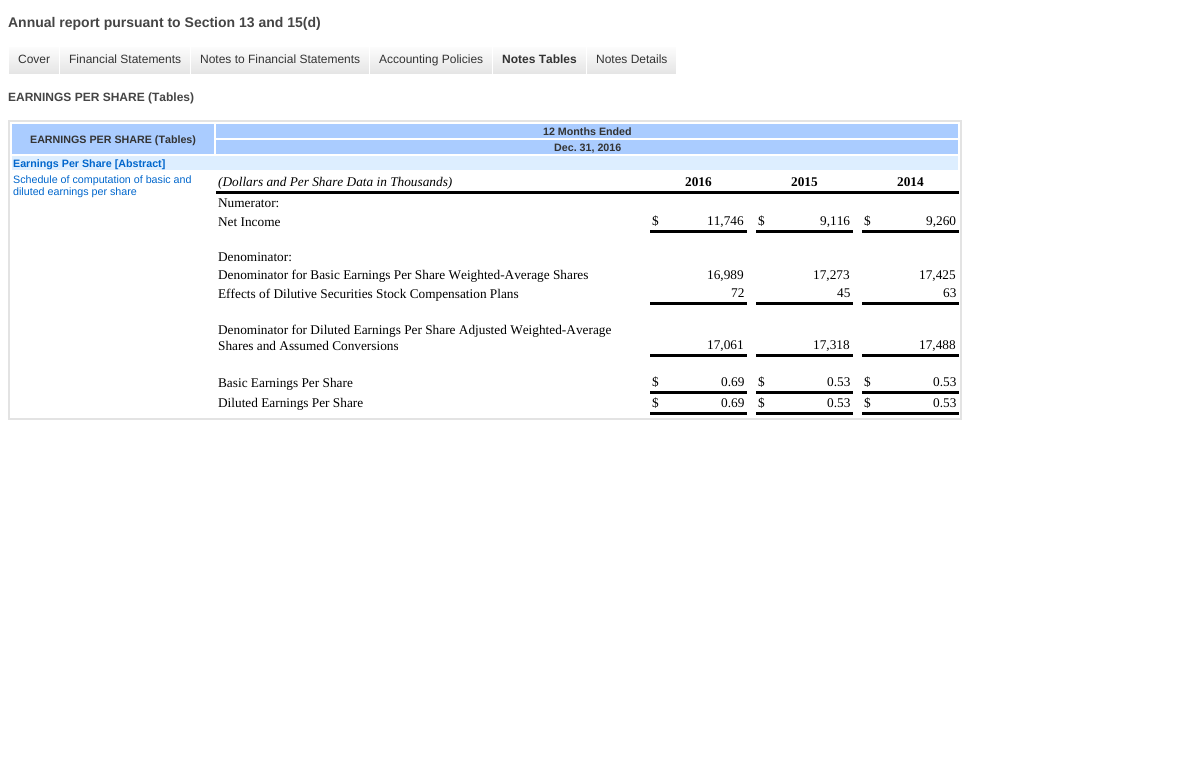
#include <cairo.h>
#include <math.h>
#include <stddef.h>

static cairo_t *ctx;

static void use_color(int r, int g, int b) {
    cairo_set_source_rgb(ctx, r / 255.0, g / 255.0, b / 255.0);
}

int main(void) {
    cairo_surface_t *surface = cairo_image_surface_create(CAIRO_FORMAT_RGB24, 1196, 775);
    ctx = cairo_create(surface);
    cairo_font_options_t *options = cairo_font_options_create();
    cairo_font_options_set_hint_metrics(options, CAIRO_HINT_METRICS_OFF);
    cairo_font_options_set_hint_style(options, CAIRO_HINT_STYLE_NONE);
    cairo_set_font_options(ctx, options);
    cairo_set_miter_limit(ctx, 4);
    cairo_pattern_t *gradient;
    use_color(255, 255, 255);
    cairo_paint(ctx);
    cairo_select_font_face(ctx, "Liberation Sans", CAIRO_FONT_SLANT_NORMAL, CAIRO_FONT_WEIGHT_BOLD);
    cairo_set_font_size(ctx, 14);
    use_color(69, 69, 69);
    cairo_move_to(ctx, 8, 27);
    cairo_show_text(ctx, "Annual report pursuant to Section 13 and 15(d)");
    gradient = cairo_pattern_create_linear(34, 44, 34, 74);
    cairo_pattern_add_color_stop_rgba(gradient, 0, 1, 1, 1, 1);
    cairo_pattern_add_color_stop_rgba(gradient, 1, 0.898, 0.898, 0.898, 1);
    cairo_set_source(ctx, gradient);
    cairo_pattern_destroy(gradient);
    cairo_rectangle(ctx, 9, 47, 50, 27);
    cairo_fill(ctx);
    cairo_select_font_face(ctx, "Liberation Sans", CAIRO_FONT_SLANT_NORMAL, CAIRO_FONT_WEIGHT_NORMAL);
    cairo_set_font_size(ctx, 12);
    use_color(51, 51, 51);
    cairo_move_to(ctx, 18, 63);
    cairo_show_text(ctx, "Cover");
    gradient = cairo_pattern_create_linear(125, 44, 125, 74);
    cairo_pattern_add_color_stop_rgba(gradient, 0, 1, 1, 1, 1);
    cairo_pattern_add_color_stop_rgba(gradient, 1, 0.898, 0.898, 0.898, 1);
    cairo_set_source(ctx, gradient);
    cairo_pattern_destroy(gradient);
    cairo_rectangle(ctx, 60, 47, 130, 27);
    cairo_fill(ctx);
    use_color(51, 51, 51);
    cairo_move_to(ctx, 69, 63);
    cairo_show_text(ctx, "Financial Statements");
    gradient = cairo_pattern_create_linear(280, 44, 280, 74);
    cairo_pattern_add_color_stop_rgba(gradient, 0, 1, 1, 1, 1);
    cairo_pattern_add_color_stop_rgba(gradient, 1, 0.898, 0.898, 0.898, 1);
    cairo_set_source(ctx, gradient);
    cairo_pattern_destroy(gradient);
    cairo_rectangle(ctx, 191, 47, 178, 27);
    cairo_fill(ctx);
    use_color(51, 51, 51);
    cairo_move_to(ctx, 200, 63);
    cairo_show_text(ctx, "Notes to Financial Statements");
    gradient = cairo_pattern_create_linear(431, 44, 431, 74);
    cairo_pattern_add_color_stop_rgba(gradient, 0, 1, 1, 1, 1);
    cairo_pattern_add_color_stop_rgba(gradient, 1, 0.898, 0.898, 0.898, 1);
    cairo_set_source(ctx, gradient);
    cairo_pattern_destroy(gradient);
    cairo_rectangle(ctx, 370, 47, 122, 27);
    cairo_fill(ctx);
    use_color(51, 51, 51);
    cairo_move_to(ctx, 379, 63);
    cairo_show_text(ctx, "Accounting Policies");
    gradient = cairo_pattern_create_linear(540, 44, 540, 74);
    cairo_pattern_add_color_stop_rgba(gradient, 0, 1, 1, 1, 1);
    cairo_pattern_add_color_stop_rgba(gradient, 1, 0.898, 0.898, 0.898, 1);
    cairo_set_source(ctx, gradient);
    cairo_pattern_destroy(gradient);
    cairo_rectangle(ctx, 493, 47, 93, 27);
    cairo_fill(ctx);
    cairo_select_font_face(ctx, "Liberation Sans", CAIRO_FONT_SLANT_NORMAL, CAIRO_FONT_WEIGHT_BOLD);
    use_color(51, 51, 51);
    cairo_move_to(ctx, 502, 63);
    cairo_show_text(ctx, "Notes Tables");
    gradient = cairo_pattern_create_linear(632, 44, 632, 74);
    cairo_pattern_add_color_stop_rgba(gradient, 0, 1, 1, 1, 1);
    cairo_pattern_add_color_stop_rgba(gradient, 1, 0.898, 0.898, 0.898, 1);
    cairo_set_source(ctx, gradient);
    cairo_pattern_destroy(gradient);
    cairo_rectangle(ctx, 587, 47, 89, 27);
    cairo_fill(ctx);
    cairo_select_font_face(ctx, "Liberation Sans", CAIRO_FONT_SLANT_NORMAL, CAIRO_FONT_WEIGHT_NORMAL);
    use_color(51, 51, 51);
    cairo_move_to(ctx, 596, 63);
    cairo_show_text(ctx, "Notes Details");
    cairo_select_font_face(ctx, "Liberation Sans", CAIRO_FONT_SLANT_NORMAL, CAIRO_FONT_WEIGHT_BOLD);
    use_color(69, 69, 69);
    cairo_move_to(ctx, 8, 101);
    cairo_show_text(ctx, "EARNINGS PER SHARE (Tables)");
    cairo_rectangle(ctx, 9, 121, 952, 298);
    use_color(227, 227, 227);
    cairo_stroke(ctx);
    use_color(170, 204, 255);
    cairo_rectangle(ctx, 216, 124, 742, 14);
    cairo_fill(ctx);
    cairo_set_font_size(ctx, 10.7);
    use_color(51, 51, 51);
    cairo_move_to(ctx, 543, 135);
    cairo_show_text(ctx, "12 Months Ended");
    use_color(170, 204, 255);
    cairo_rectangle(ctx, 12, 124, 202, 30);
    cairo_fill(ctx);
    use_color(51, 51, 51);
    cairo_move_to(ctx, 30, 143);
    cairo_show_text(ctx, "EARNINGS PER SHARE (Tables)");
    use_color(170, 204, 255);
    cairo_rectangle(ctx, 216, 140, 742, 14);
    cairo_fill(ctx);
    use_color(51, 51, 51);
    cairo_move_to(ctx, 554, 151);
    cairo_show_text(ctx, "Dec. 31, 2016");
    use_color(221, 238, 255);
    cairo_rectangle(ctx, 12, 156, 946, 14);
    cairo_fill(ctx);
    use_color(0, 102, 204);
    cairo_move_to(ctx, 13, 167);
    cairo_show_text(ctx, "Earnings Per Share [Abstract]");
    cairo_select_font_face(ctx, "Liberation Sans", CAIRO_FONT_SLANT_NORMAL, CAIRO_FONT_WEIGHT_NORMAL);
    cairo_move_to(ctx, 13, 183);
    cairo_show_text(ctx, "Schedule of computation of basic and");
    cairo_move_to(ctx, 13, 195);
    cairo_show_text(ctx, "diluted earnings per share");
    cairo_select_font_face(ctx, "Liberation Serif", CAIRO_FONT_SLANT_ITALIC, CAIRO_FONT_WEIGHT_NORMAL);
    cairo_set_font_size(ctx, 13.3);
    use_color(0, 0, 0);
    cairo_move_to(ctx, 218, 186);
    cairo_show_text(ctx, "(Dollars and Per Share Data in Thousands)");
    cairo_select_font_face(ctx, "Liberation Serif", CAIRO_FONT_SLANT_NORMAL, CAIRO_FONT_WEIGHT_BOLD);
    cairo_move_to(ctx, 685, 186);
    cairo_show_text(ctx, "2016");
    cairo_move_to(ctx, 791, 186);
    cairo_show_text(ctx, "2015");
    cairo_move_to(ctx, 897, 186);
    cairo_show_text(ctx, "2014");
    cairo_rectangle(ctx, 216, 191, 743, 3);
    cairo_fill(ctx);
    cairo_select_font_face(ctx, "Liberation Serif", CAIRO_FONT_SLANT_NORMAL, CAIRO_FONT_WEIGHT_NORMAL);
    cairo_move_to(ctx, 218, 207);
    cairo_show_text(ctx, "Numerator:");
    cairo_move_to(ctx, 218, 226);
    cairo_show_text(ctx, "Net Income");
    cairo_move_to(ctx, 652, 225);
    cairo_show_text(ctx, "$");
    cairo_move_to(ctx, 707, 225);
    cairo_show_text(ctx, "11,746");
    cairo_move_to(ctx, 758, 225);
    cairo_show_text(ctx, "$");
    cairo_move_to(ctx, 820, 225);
    cairo_show_text(ctx, "9,116");
    cairo_move_to(ctx, 864, 225);
    cairo_show_text(ctx, "$");
    cairo_move_to(ctx, 926, 225);
    cairo_show_text(ctx, "9,260");
    cairo_rectangle(ctx, 650, 230, 97, 3);
    cairo_fill(ctx);
    cairo_rectangle(ctx, 756, 230, 97, 3);
    cairo_fill(ctx);
    cairo_rectangle(ctx, 862, 230, 97, 3);
    cairo_fill(ctx);
    cairo_move_to(ctx, 218, 261);
    cairo_show_text(ctx, "Denominator:");
    cairo_move_to(ctx, 218, 279);
    cairo_show_text(ctx, "Denominator for Basic Earnings Per Share Weighted-Average Shares");
    cairo_move_to(ctx, 707, 279);
    cairo_show_text(ctx, "16,989");
    cairo_move_to(ctx, 813, 279);
    cairo_show_text(ctx, "17,273");
    cairo_move_to(ctx, 919, 279);
    cairo_show_text(ctx, "17,425");
    cairo_move_to(ctx, 218, 298);
    cairo_show_text(ctx, "Effects of Dilutive Securities Stock Compensation Plans");
    cairo_move_to(ctx, 731, 297);
    cairo_show_text(ctx, "72");
    cairo_move_to(ctx, 837, 297);
    cairo_show_text(ctx, "45");
    cairo_move_to(ctx, 943, 297);
    cairo_show_text(ctx, "63");
    cairo_rectangle(ctx, 650, 302, 97, 3);
    cairo_fill(ctx);
    cairo_rectangle(ctx, 756, 302, 97, 3);
    cairo_fill(ctx);
    cairo_rectangle(ctx, 862, 302, 97, 3);
    cairo_fill(ctx);
    cairo_move_to(ctx, 218, 334);
    cairo_show_text(ctx, "Denominator for Diluted Earnings Per Share Adjusted Weighted-Average");
    cairo_move_to(ctx, 218, 350);
    cairo_show_text(ctx, "Shares and Assumed Conversions");
    cairo_move_to(ctx, 707, 349);
    cairo_show_text(ctx, "17,061");
    cairo_move_to(ctx, 813, 349);
    cairo_show_text(ctx, "17,318");
    cairo_move_to(ctx, 919, 349);
    cairo_show_text(ctx, "17,488");
    cairo_rectangle(ctx, 650, 354, 97, 3);
    cairo_fill(ctx);
    cairo_rectangle(ctx, 756, 354, 97, 3);
    cairo_fill(ctx);
    cairo_rectangle(ctx, 862, 354, 97, 3);
    cairo_fill(ctx);
    cairo_move_to(ctx, 218, 387);
    cairo_show_text(ctx, "Basic Earnings Per Share");
    cairo_move_to(ctx, 652, 386);
    cairo_show_text(ctx, "$");
    cairo_move_to(ctx, 721, 386);
    cairo_show_text(ctx, "0.69");
    cairo_move_to(ctx, 758, 386);
    cairo_show_text(ctx, "$");
    cairo_move_to(ctx, 827, 386);
    cairo_show_text(ctx, "0.53");
    cairo_move_to(ctx, 864, 386);
    cairo_show_text(ctx, "$");
    cairo_move_to(ctx, 933, 386);
    cairo_show_text(ctx, "0.53");
    cairo_move_to(ctx, 218, 407);
    cairo_show_text(ctx, "Diluted Earnings Per Share");
    cairo_move_to(ctx, 652, 407);
    cairo_show_text(ctx, "$");
    cairo_rectangle(ctx, 650, 391, 97, 3);
    cairo_fill(ctx);
    cairo_rectangle(ctx, 650, 412, 97, 3);
    cairo_fill(ctx);
    cairo_move_to(ctx, 721, 407);
    cairo_show_text(ctx, "0.69");
    cairo_move_to(ctx, 758, 407);
    cairo_show_text(ctx, "$");
    cairo_rectangle(ctx, 756, 391, 97, 3);
    cairo_fill(ctx);
    cairo_rectangle(ctx, 756, 412, 97, 3);
    cairo_fill(ctx);
    cairo_move_to(ctx, 827, 407);
    cairo_show_text(ctx, "0.53");
    cairo_move_to(ctx, 864, 407);
    cairo_show_text(ctx, "$");
    cairo_rectangle(ctx, 862, 391, 97, 3);
    cairo_fill(ctx);
    cairo_rectangle(ctx, 862, 412, 97, 3);
    cairo_fill(ctx);
    cairo_move_to(ctx, 933, 407);
    cairo_show_text(ctx, "0.53");
    cairo_surface_write_to_png(surface, "result.png");
    cairo_font_options_destroy(options);
    cairo_destroy(ctx);
    cairo_surface_destroy(surface);
    return 0;
}
